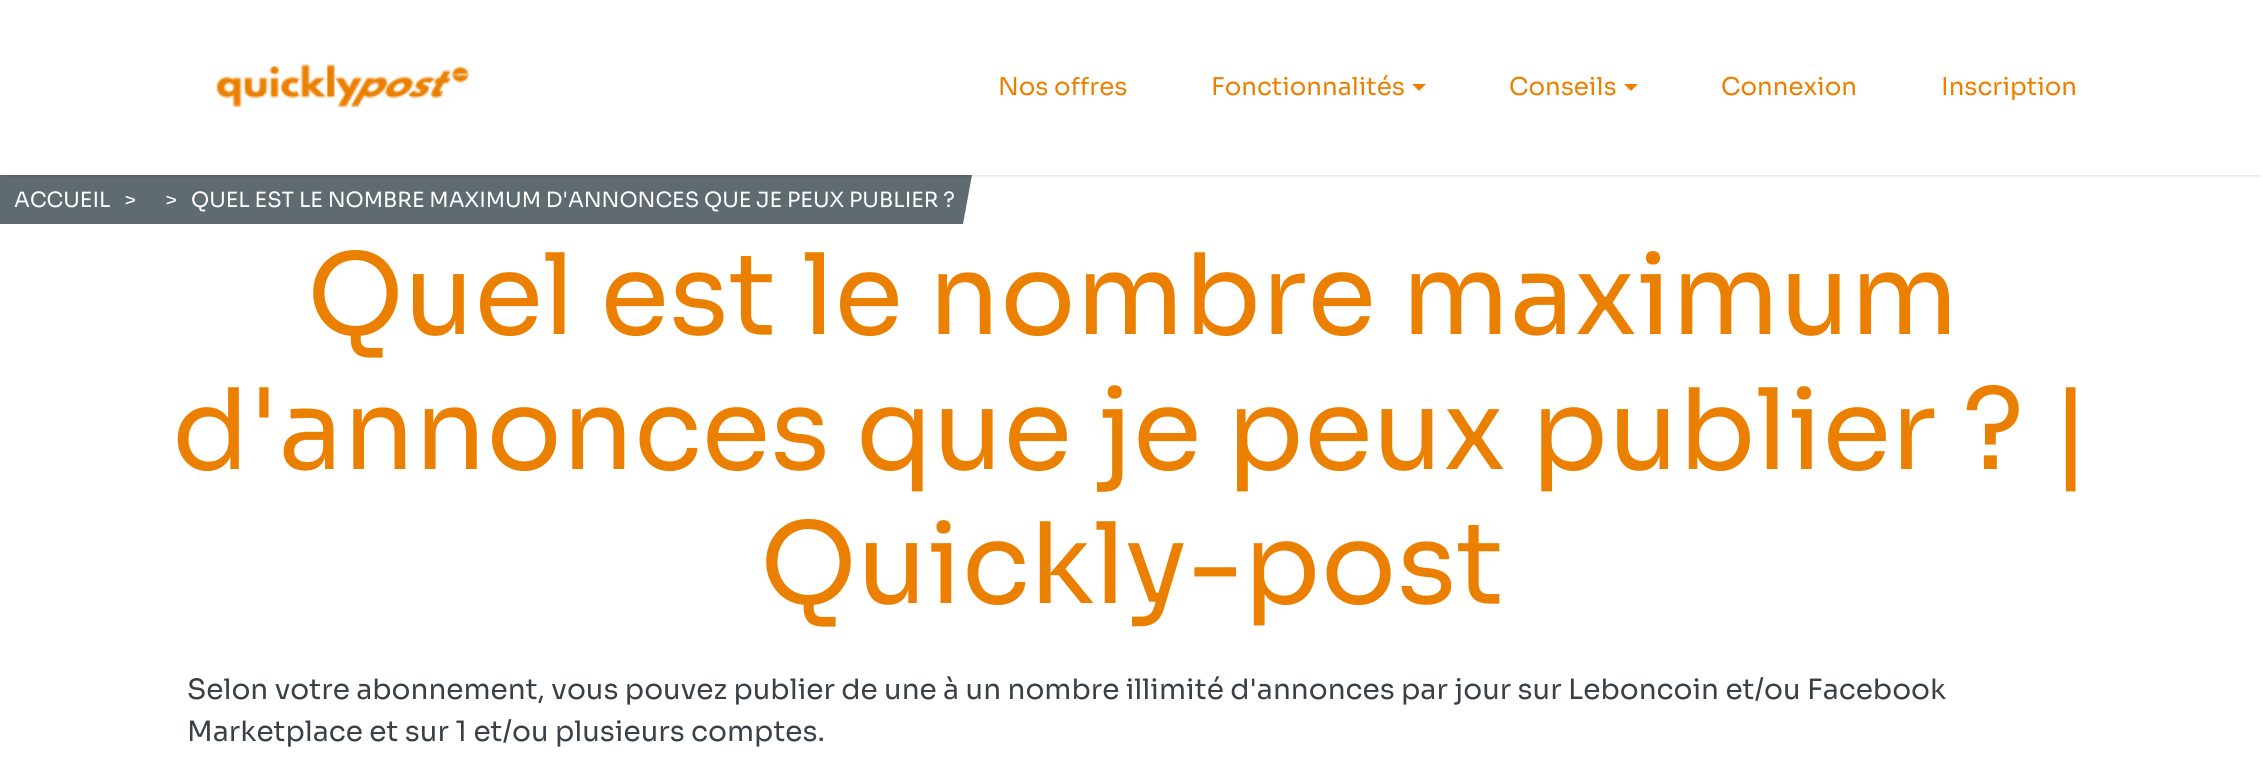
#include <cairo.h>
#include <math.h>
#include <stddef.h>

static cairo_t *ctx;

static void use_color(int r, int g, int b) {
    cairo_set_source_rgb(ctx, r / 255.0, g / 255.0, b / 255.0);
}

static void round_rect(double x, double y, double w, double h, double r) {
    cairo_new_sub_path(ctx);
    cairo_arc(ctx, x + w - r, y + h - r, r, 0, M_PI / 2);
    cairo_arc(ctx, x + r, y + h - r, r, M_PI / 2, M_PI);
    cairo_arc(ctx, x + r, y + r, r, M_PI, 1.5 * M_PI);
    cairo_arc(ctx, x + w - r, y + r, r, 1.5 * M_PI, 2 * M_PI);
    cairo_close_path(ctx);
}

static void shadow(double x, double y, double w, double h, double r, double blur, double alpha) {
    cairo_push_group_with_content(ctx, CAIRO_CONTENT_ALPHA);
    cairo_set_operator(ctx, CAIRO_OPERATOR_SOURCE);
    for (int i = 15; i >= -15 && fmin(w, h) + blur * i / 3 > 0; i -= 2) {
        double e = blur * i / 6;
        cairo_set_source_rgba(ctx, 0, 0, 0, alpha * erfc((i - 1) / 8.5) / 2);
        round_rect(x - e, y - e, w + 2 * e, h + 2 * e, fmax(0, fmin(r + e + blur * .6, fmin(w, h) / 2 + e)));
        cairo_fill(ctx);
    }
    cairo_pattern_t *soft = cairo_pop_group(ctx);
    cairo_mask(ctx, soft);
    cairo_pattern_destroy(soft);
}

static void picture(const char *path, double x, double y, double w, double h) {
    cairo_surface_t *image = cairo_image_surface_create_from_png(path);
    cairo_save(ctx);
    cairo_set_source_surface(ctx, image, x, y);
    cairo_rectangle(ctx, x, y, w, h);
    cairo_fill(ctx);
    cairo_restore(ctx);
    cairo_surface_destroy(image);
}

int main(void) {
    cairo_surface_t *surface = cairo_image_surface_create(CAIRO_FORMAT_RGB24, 2263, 773);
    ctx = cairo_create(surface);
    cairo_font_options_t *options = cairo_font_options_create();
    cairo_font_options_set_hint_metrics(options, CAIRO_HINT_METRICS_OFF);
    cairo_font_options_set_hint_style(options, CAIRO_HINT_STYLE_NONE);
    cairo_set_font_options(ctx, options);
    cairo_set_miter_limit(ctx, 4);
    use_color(255, 255, 255);
    cairo_paint(ctx);
    use_color(95, 106, 113);
    cairo_new_path(ctx);
    cairo_move_to(ctx, -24, 175);
    cairo_line_to(ctx, 972, 175);
    cairo_line_to(ctx, 963, 224);
    cairo_line_to(ctx, -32, 224);
    cairo_close_path(ctx);
    cairo_fill(ctx);
    cairo_save(ctx);
    cairo_rectangle(ctx, 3, 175, 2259, 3);
    cairo_clip(ctx);
    use_color(0, 0, 0);
    shadow(4, 7, 2257, 168, 0, 2, 0.2);
    cairo_restore(ctx);
    picture("img1.png", 216, 64, 254, 44);
    cairo_select_font_face(ctx, "Sora", CAIRO_FONT_SLANT_NORMAL, CAIRO_FONT_WEIGHT_NORMAL);
    cairo_set_font_size(ctx, 24.5);
    use_color(235, 127, 0);
    cairo_move_to(ctx, 998, 95);
    cairo_show_text(ctx, "Nos offres");
    cairo_move_to(ctx, 1211, 95);
    cairo_show_text(ctx, "Fonctionnalités");
    cairo_new_path(ctx);
    cairo_move_to(ctx, 1412, 84);
    cairo_line_to(ctx, 1426, 84);
    cairo_line_to(ctx, 1419, 91);
    cairo_close_path(ctx);
    cairo_fill(ctx);
    cairo_move_to(ctx, 1509, 95);
    cairo_show_text(ctx, "Conseils");
    cairo_new_path(ctx);
    cairo_move_to(ctx, 1624, 84);
    cairo_line_to(ctx, 1638, 84);
    cairo_line_to(ctx, 1631, 91);
    cairo_close_path(ctx);
    cairo_fill(ctx);
    cairo_move_to(ctx, 1721, 95);
    cairo_show_text(ctx, "Connexion");
    cairo_move_to(ctx, 1941, 95);
    cairo_show_text(ctx, "Inscription");
    cairo_set_font_size(ctx, 21);
    use_color(255, 255, 255);
    cairo_move_to(ctx, 14, 207);
    cairo_show_text(ctx, "ACCUEIL");
    cairo_move_to(ctx, 124, 207);
    cairo_show_text(ctx, ">");
    cairo_move_to(ctx, 165, 207);
    cairo_show_text(ctx, ">");
    cairo_move_to(ctx, 191, 207);
    cairo_show_text(ctx, "QUEL EST LE NOMBRE MAXIMUM D'ANNONCES QUE JE PEUX PUBLIER ?");
    cairo_set_font_size(ctx, 112);
    use_color(235, 127, 0);
    cairo_move_to(ctx, 307, 334);
    cairo_show_text(ctx, "Quel est le nombre maximum");
    cairo_move_to(ctx, 172, 469);
    cairo_show_text(ctx, "d'annonces que je peux publier ? |");
    cairo_move_to(ctx, 760, 603);
    cairo_show_text(ctx, "Quickly-post");
    cairo_set_font_size(ctx, 28);
    use_color(58, 64, 70);
    cairo_move_to(ctx, 187, 699);
    cairo_show_text(ctx, "Selon votre abonnement, vous pouvez publier de une à un nombre illimité d'annonces par jour sur Leboncoin et/ou Facebook");
    cairo_move_to(ctx, 187, 741);
    cairo_show_text(ctx, "Marketplace et sur 1 et/ou plusieurs comptes.");
    cairo_surface_write_to_png(surface, "result.png");
    cairo_font_options_destroy(options);
    cairo_destroy(ctx);
    cairo_surface_destroy(surface);
    return 0;
}
